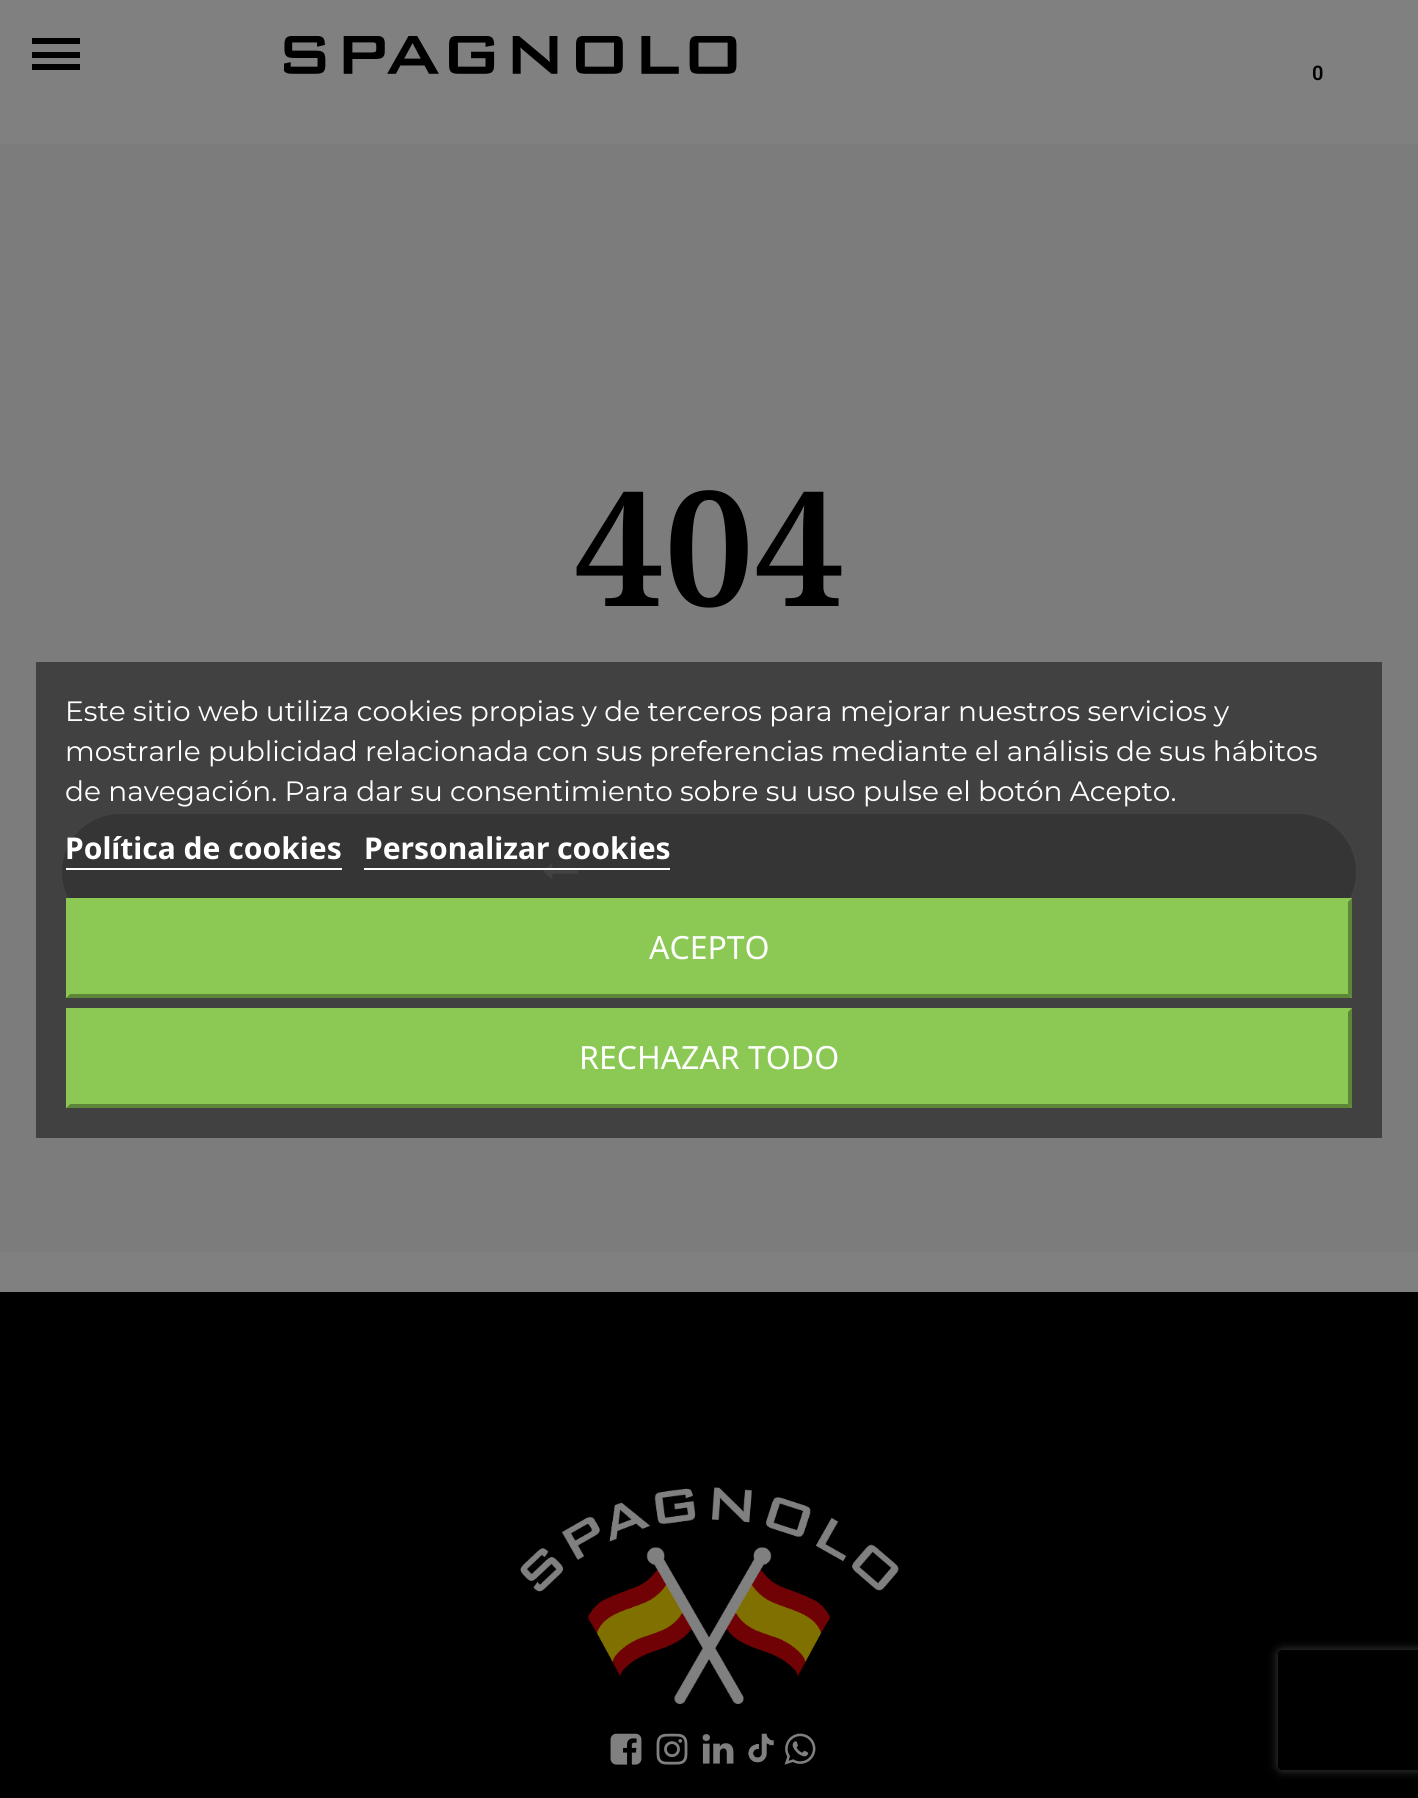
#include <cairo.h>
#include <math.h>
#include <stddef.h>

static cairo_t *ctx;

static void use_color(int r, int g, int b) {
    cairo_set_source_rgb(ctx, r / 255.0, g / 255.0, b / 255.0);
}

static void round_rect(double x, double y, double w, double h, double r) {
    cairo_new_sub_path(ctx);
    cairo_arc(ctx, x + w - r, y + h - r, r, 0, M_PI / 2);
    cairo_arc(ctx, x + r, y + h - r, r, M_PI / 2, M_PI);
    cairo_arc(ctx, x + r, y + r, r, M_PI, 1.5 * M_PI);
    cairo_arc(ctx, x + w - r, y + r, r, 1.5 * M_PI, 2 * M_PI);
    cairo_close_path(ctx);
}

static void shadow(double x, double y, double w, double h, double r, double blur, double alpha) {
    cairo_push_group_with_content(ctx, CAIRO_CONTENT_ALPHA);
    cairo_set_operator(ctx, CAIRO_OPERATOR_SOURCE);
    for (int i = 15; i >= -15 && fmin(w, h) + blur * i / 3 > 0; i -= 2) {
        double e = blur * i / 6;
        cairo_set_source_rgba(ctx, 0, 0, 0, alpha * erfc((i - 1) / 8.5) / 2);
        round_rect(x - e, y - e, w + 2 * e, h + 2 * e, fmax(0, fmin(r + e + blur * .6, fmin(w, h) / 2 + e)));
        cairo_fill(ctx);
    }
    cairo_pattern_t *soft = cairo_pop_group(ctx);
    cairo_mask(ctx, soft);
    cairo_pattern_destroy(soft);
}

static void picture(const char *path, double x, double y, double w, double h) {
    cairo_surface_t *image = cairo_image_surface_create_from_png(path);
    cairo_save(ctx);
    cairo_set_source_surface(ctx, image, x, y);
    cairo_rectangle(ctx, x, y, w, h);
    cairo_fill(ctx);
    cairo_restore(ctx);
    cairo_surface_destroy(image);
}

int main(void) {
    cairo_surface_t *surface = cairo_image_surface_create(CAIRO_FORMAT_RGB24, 1418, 1798);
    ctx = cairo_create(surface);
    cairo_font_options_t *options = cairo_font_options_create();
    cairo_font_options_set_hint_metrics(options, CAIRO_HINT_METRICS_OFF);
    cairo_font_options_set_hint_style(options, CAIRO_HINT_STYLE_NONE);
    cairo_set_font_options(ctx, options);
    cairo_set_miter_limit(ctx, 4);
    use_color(128, 128, 128);
    cairo_paint(ctx);
    use_color(0, 0, 0);
    cairo_rectangle(ctx, 32, 52, 48, 6);
    cairo_fill(ctx);
    cairo_rectangle(ctx, 32, 38, 48, 6);
    cairo_fill(ctx);
    cairo_rectangle(ctx, 32, 64, 48, 6);
    cairo_fill(ctx);
    picture("img1.png", 284, 36, 453, 38);
    cairo_select_font_face(ctx, "Roboto SemiBold", CAIRO_FONT_SLANT_NORMAL, CAIRO_FONT_WEIGHT_NORMAL);
    cairo_set_font_size(ctx, 20);
    cairo_move_to(ctx, 1312, 80);
    cairo_show_text(ctx, "0");
    use_color(124, 124, 124);
    cairo_rectangle(ctx, 0, 144, 1418, 1108);
    cairo_fill(ctx);
    use_color(0, 0, 0);
    round_rect(61, 813, 1296, 118, 59);
    cairo_fill_preserve(ctx);
    use_color(128, 128, 128);
    cairo_stroke(ctx);
    picture("img2.png", 543, 863, 35, 16);
    cairo_set_source_rgba(ctx, 0.231, 0.231, 0.231, 0.9);
    cairo_rectangle(ctx, 36, 662, 1346, 476);
    cairo_fill(ctx);
    cairo_select_font_face(ctx, "Montserrat", CAIRO_FONT_SLANT_NORMAL, CAIRO_FONT_WEIGHT_NORMAL);
    cairo_set_font_size(ctx, 28);
    use_color(255, 255, 255);
    cairo_move_to(ctx, 65, 721);
    cairo_show_text(ctx, "Este sitio web utiliza cookies propias y de terceros para mejorar nuestros servicios y");
    cairo_move_to(ctx, 65, 761);
    cairo_show_text(ctx, "mostrarle publicidad relacionada con sus preferencias mediante el análisis de sus hábitos");
    cairo_move_to(ctx, 65, 801);
    cairo_show_text(ctx, "de navegación. Para dar su consentimiento sobre su uso pulse el botón Acepto.");
    cairo_select_font_face(ctx, "Noto Sans", CAIRO_FONT_SLANT_NORMAL, CAIRO_FONT_WEIGHT_BOLD);
    cairo_set_font_size(ctx, 30);
    cairo_move_to(ctx, 65, 859);
    cairo_show_text(ctx, "Política de cookies");
    cairo_rectangle(ctx, 66, 868, 276, 2);
    cairo_fill(ctx);
    cairo_move_to(ctx, 364, 859);
    cairo_show_text(ctx, "Personalizar cookies");
    cairo_rectangle(ctx, 364, 868, 306, 2);
    cairo_fill(ctx);
    use_color(139, 201, 84);
    cairo_rectangle(ctx, 66, 898, 1286, 100);
    cairo_fill(ctx);
    use_color(93, 134, 56);
    cairo_new_path(ctx);
    cairo_move_to(ctx, 1352, 898);
    cairo_line_to(ctx, 1352, 998);
    cairo_line_to(ctx, 1348, 994);
    cairo_line_to(ctx, 1348, 902);
    cairo_close_path(ctx);
    cairo_fill(ctx);
    cairo_new_path(ctx);
    cairo_move_to(ctx, 1352, 998);
    cairo_line_to(ctx, 66, 998);
    cairo_line_to(ctx, 70, 994);
    cairo_line_to(ctx, 1348, 994);
    cairo_close_path(ctx);
    cairo_fill(ctx);
    use_color(139, 201, 84);
    cairo_new_path(ctx);
    cairo_move_to(ctx, 66, 998);
    cairo_line_to(ctx, 66, 898);
    cairo_line_to(ctx, 70, 902);
    cairo_line_to(ctx, 70, 994);
    cairo_close_path(ctx);
    cairo_fill(ctx);
    cairo_select_font_face(ctx, "Noto Sans", CAIRO_FONT_SLANT_NORMAL, CAIRO_FONT_WEIGHT_NORMAL);
    cairo_set_font_size(ctx, 32);
    use_color(255, 255, 255);
    cairo_move_to(ctx, 649, 959);
    cairo_show_text(ctx, "ACEPTO");
    use_color(139, 201, 84);
    cairo_rectangle(ctx, 66, 1008, 1286, 100);
    cairo_fill(ctx);
    use_color(93, 134, 56);
    cairo_new_path(ctx);
    cairo_move_to(ctx, 1352, 1008);
    cairo_line_to(ctx, 1352, 1108);
    cairo_line_to(ctx, 1348, 1104);
    cairo_line_to(ctx, 1348, 1012);
    cairo_close_path(ctx);
    cairo_fill(ctx);
    cairo_new_path(ctx);
    cairo_move_to(ctx, 1352, 1108);
    cairo_line_to(ctx, 66, 1108);
    cairo_line_to(ctx, 70, 1104);
    cairo_line_to(ctx, 1348, 1104);
    cairo_close_path(ctx);
    cairo_fill(ctx);
    use_color(139, 201, 84);
    cairo_new_path(ctx);
    cairo_move_to(ctx, 66, 1108);
    cairo_line_to(ctx, 66, 1008);
    cairo_line_to(ctx, 70, 1012);
    cairo_line_to(ctx, 70, 1104);
    cairo_close_path(ctx);
    cairo_fill(ctx);
    use_color(255, 255, 255);
    cairo_move_to(ctx, 579, 1069);
    cairo_show_text(ctx, "RECHAZAR TODO");
    cairo_select_font_face(ctx, "Noto Serif SemiBold", CAIRO_FONT_SLANT_NORMAL, CAIRO_FONT_WEIGHT_NORMAL);
    cairo_set_font_size(ctx, 160);
    use_color(0, 0, 0);
    cairo_move_to(ctx, 574, 606);
    cairo_show_text(ctx, "404");
    cairo_rectangle(ctx, 0, 1292, 1418, 506);
    cairo_fill(ctx);
    picture("img3.png", 520, 1487, 379, 217);
    picture("img4.png", 610, 1733, 32, 32);
    picture("img5.png", 656, 1733, 32, 32);
    picture("img6.png", 702, 1734, 32, 30);
    picture("img7.png", 748, 1733, 26, 30);
    picture("img8.png", 784, 1733, 32, 32);
    cairo_save(ctx);
    cairo_set_fill_rule(ctx, CAIRO_FILL_RULE_EVEN_ODD);
    cairo_new_path(ctx);
    cairo_move_to(ctx, 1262, 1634);
    cairo_line_to(ctx, 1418, 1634);
    cairo_line_to(ctx, 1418, 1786);
    cairo_line_to(ctx, 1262, 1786);
    cairo_close_path(ctx);
    cairo_move_to(ctx, 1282, 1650);
    cairo_line_to(ctx, 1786, 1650);
    cairo_curve_to(ctx, 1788, 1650, 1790, 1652, 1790, 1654);
    cairo_line_to(ctx, 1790, 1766);
    cairo_curve_to(ctx, 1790, 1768, 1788, 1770, 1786, 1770);
    cairo_line_to(ctx, 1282, 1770);
    cairo_curve_to(ctx, 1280, 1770, 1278, 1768, 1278, 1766);
    cairo_line_to(ctx, 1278, 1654);
    cairo_curve_to(ctx, 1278, 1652, 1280, 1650, 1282, 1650);
    cairo_close_path(ctx);
    cairo_clip(ctx);
    use_color(64, 64, 64);
    shadow(1278, 1650, 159, 120, 4, 5, 1);
    cairo_restore(ctx);
    cairo_surface_write_to_png(surface, "result.png");
    cairo_font_options_destroy(options);
    cairo_destroy(ctx);
    cairo_surface_destroy(surface);
    return 0;
}
